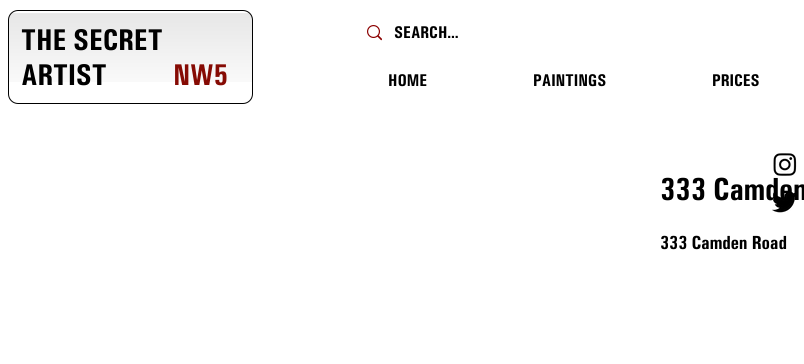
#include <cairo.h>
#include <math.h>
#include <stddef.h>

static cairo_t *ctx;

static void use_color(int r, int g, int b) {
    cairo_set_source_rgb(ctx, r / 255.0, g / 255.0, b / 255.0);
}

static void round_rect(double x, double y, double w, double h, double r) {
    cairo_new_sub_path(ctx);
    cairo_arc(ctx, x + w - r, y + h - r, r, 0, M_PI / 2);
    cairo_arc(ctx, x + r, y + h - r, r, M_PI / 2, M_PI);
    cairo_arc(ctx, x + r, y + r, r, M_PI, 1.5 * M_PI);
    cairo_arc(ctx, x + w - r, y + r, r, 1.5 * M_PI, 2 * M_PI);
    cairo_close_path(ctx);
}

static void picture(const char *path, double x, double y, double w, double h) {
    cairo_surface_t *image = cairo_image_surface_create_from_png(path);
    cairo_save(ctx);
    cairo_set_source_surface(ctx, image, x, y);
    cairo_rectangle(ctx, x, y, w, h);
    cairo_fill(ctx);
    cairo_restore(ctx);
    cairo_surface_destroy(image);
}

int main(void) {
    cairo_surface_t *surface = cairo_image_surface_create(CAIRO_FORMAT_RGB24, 804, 364);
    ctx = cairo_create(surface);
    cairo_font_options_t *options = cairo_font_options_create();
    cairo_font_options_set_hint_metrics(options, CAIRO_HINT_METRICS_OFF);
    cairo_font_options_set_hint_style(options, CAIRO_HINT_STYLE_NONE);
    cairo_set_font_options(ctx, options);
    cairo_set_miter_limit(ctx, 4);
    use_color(255, 255, 255);
    cairo_paint(ctx);
    picture("img1.png", 8, 13, 245, 69);
    round_rect(8.5, 10.5, 244, 93, 9.5);
    use_color(0, 0, 0);
    cairo_set_line_width(ctx, 1);
    cairo_stroke(ctx);
    cairo_select_font_face(ctx, "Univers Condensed", CAIRO_FONT_SLANT_NORMAL, CAIRO_FONT_WEIGHT_BOLD);
    cairo_set_font_size(ctx, 30);
    cairo_move_to(ctx, 21, 50);
    cairo_show_text(ctx, "THE SECRET");
    cairo_move_to(ctx, 21, 85);
    cairo_show_text(ctx, "ARTIST");
    use_color(134, 11, 4);
    cairo_move_to(ctx, 173, 85);
    cairo_show_text(ctx, "NW5");
    picture("img2.png", 367, 25, 15, 16);
    cairo_set_font_size(ctx, 17);
    use_color(0, 0, 0);
    cairo_move_to(ctx, 394, 38);
    cairo_show_text(ctx, "SEARCH...");
    cairo_move_to(ctx, 388, 86);
    cairo_show_text(ctx, "HOME");
    cairo_move_to(ctx, 533, 86);
    cairo_show_text(ctx, "PAINTINGS");
    cairo_move_to(ctx, 712, 86);
    cairo_show_text(ctx, "PRICES");
    picture("img3.png", 773, 153, 24, 23);
    cairo_set_font_size(ctx, 32);
    cairo_move_to(ctx, 660, 200);
    cairo_show_text(ctx, "333 Camden");
    picture("img4.png", 772, 191, 23, 22);
    cairo_set_font_size(ctx, 19);
    cairo_move_to(ctx, 660, 249);
    cairo_show_text(ctx, "333 Camden Road");
    cairo_surface_write_to_png(surface, "result.png");
    cairo_font_options_destroy(options);
    cairo_destroy(ctx);
    cairo_surface_destroy(surface);
    return 0;
}
